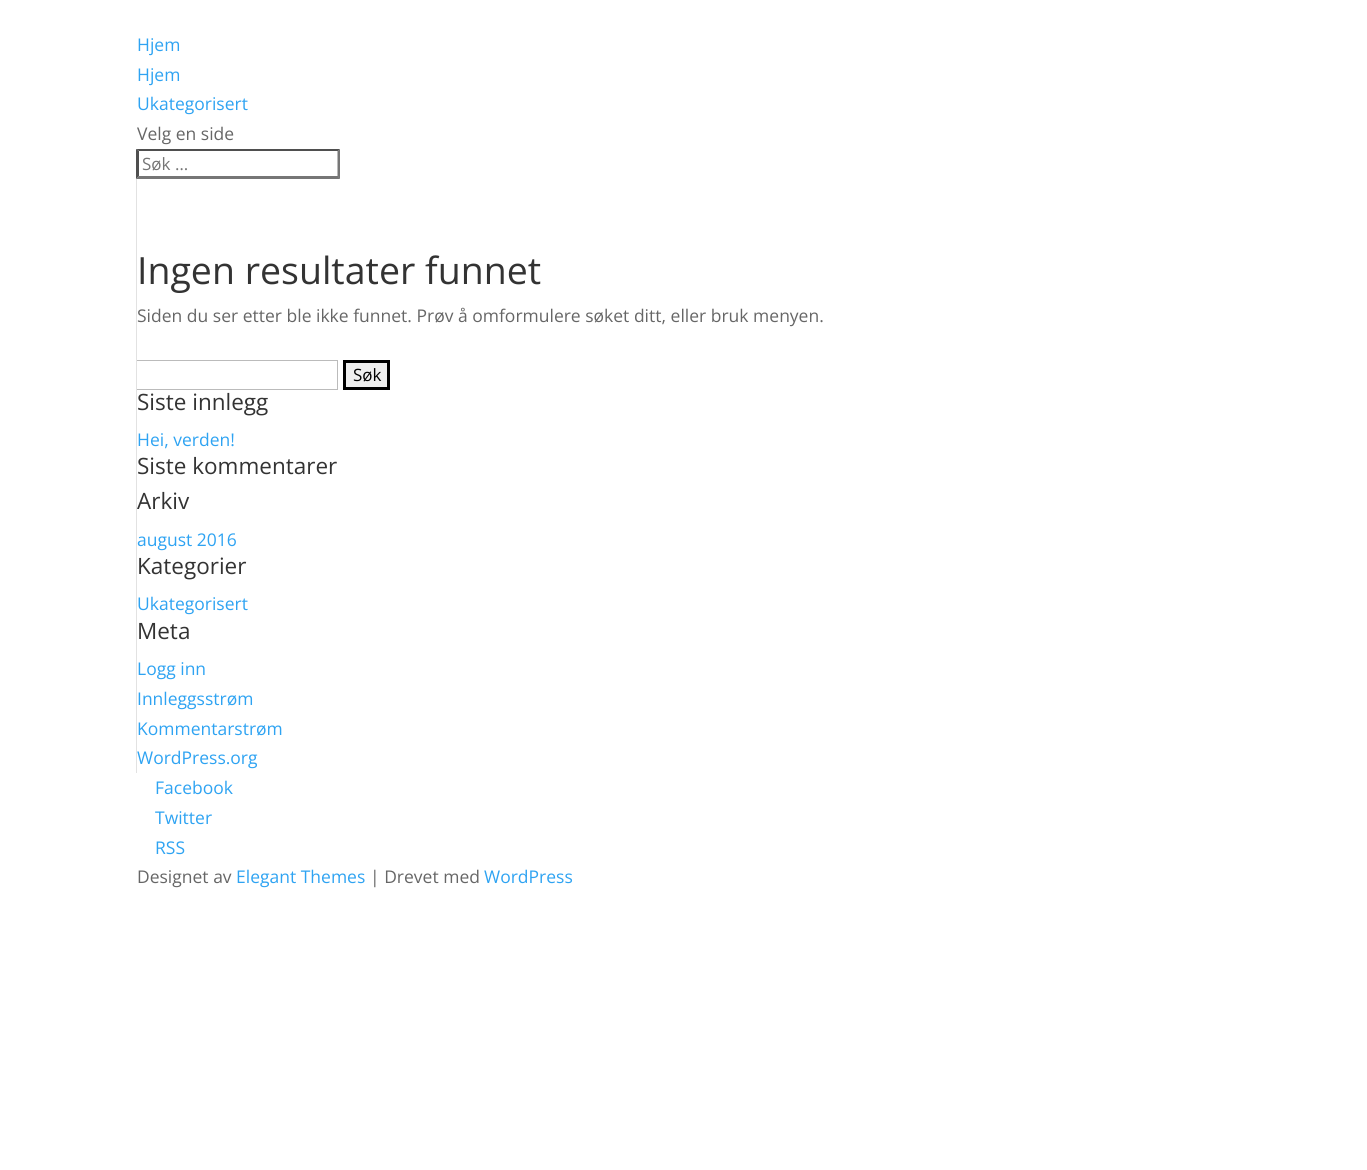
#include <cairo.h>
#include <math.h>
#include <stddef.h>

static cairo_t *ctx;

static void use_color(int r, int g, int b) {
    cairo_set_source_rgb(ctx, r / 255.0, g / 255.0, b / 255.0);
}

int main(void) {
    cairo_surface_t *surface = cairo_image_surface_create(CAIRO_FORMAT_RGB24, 1367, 1170);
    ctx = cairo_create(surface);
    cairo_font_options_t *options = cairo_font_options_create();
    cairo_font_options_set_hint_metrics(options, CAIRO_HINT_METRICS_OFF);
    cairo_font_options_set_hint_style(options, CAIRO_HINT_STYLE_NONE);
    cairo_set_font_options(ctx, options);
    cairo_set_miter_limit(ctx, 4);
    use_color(255, 255, 255);
    cairo_paint(ctx);
    cairo_select_font_face(ctx, "Open Sans", CAIRO_FONT_SLANT_NORMAL, CAIRO_FONT_WEIGHT_NORMAL);
    cairo_set_font_size(ctx, 17.5);
    use_color(46, 163, 242);
    cairo_move_to(ctx, 137, 51);
    cairo_show_text(ctx, "Hjem");
    cairo_move_to(ctx, 137, 81);
    cairo_show_text(ctx, "Hjem");
    cairo_move_to(ctx, 137, 110);
    cairo_show_text(ctx, "Ukategorisert");
    use_color(102, 102, 102);
    cairo_move_to(ctx, 137, 140);
    cairo_show_text(ctx, "Velg en side");
    use_color(79, 79, 79);
    cairo_new_path(ctx);
    cairo_move_to(ctx, 136, 149);
    cairo_line_to(ctx, 340, 149);
    cairo_line_to(ctx, 338, 151);
    cairo_line_to(ctx, 139, 151);
    cairo_close_path(ctx);
    cairo_fill(ctx);
    use_color(118, 118, 118);
    cairo_new_path(ctx);
    cairo_move_to(ctx, 340, 149);
    cairo_line_to(ctx, 340, 179);
    cairo_line_to(ctx, 337.5, 176);
    cairo_line_to(ctx, 337.5, 151);
    cairo_close_path(ctx);
    cairo_fill(ctx);
    cairo_new_path(ctx);
    cairo_move_to(ctx, 340, 179);
    cairo_line_to(ctx, 136, 179);
    cairo_line_to(ctx, 139, 176);
    cairo_line_to(ctx, 338, 176);
    cairo_close_path(ctx);
    cairo_fill(ctx);
    use_color(79, 79, 79);
    cairo_new_path(ctx);
    cairo_move_to(ctx, 136, 179);
    cairo_line_to(ctx, 136, 149);
    cairo_line_to(ctx, 139, 151);
    cairo_line_to(ctx, 139, 176);
    cairo_close_path(ctx);
    cairo_fill(ctx);
    cairo_set_font_size(ctx, 17);
    use_color(117, 117, 117);
    cairo_move_to(ctx, 142, 170);
    cairo_show_text(ctx, "Søk …");
    cairo_rectangle(ctx, 136.5, 360.5, 201, 29);
    use_color(187, 187, 187);
    cairo_set_line_width(ctx, 1);
    cairo_stroke(ctx);
    cairo_set_font_size(ctx, 22.5);
    use_color(51, 51, 51);
    cairo_move_to(ctx, 137, 509);
    cairo_show_text(ctx, "Arkiv");
    use_color(226, 226, 226);
    cairo_rectangle(ctx, 136, 179, 1, 594);
    cairo_fill(ctx);
    cairo_set_font_size(ctx, 37.5);
    use_color(51, 51, 51);
    cairo_move_to(ctx, 137, 284);
    cairo_show_text(ctx, "Ingen resultater funnet");
    cairo_set_font_size(ctx, 17.5);
    use_color(102, 102, 102);
    cairo_move_to(ctx, 137, 322);
    cairo_show_text(ctx, "Siden du ser etter ble ikke funnet. Prøv å omformulere søket ditt, eller bruk menyen.");
    use_color(239, 239, 239);
    cairo_rectangle(ctx, 344.5, 361.5, 44, 27);
    cairo_fill_preserve(ctx);
    use_color(0, 0, 0);
    cairo_set_line_width(ctx, 3);
    cairo_stroke(ctx);
    cairo_set_font_size(ctx, 17);
    cairo_move_to(ctx, 353, 381);
    cairo_show_text(ctx, "Søk");
    cairo_set_font_size(ctx, 22.5);
    use_color(51, 51, 51);
    cairo_move_to(ctx, 137, 410);
    cairo_show_text(ctx, "Siste innlegg");
    cairo_set_font_size(ctx, 17.5);
    use_color(46, 163, 242);
    cairo_move_to(ctx, 137, 446);
    cairo_show_text(ctx, "Hei, verden!");
    cairo_set_font_size(ctx, 22.5);
    use_color(51, 51, 51);
    cairo_move_to(ctx, 137, 474);
    cairo_show_text(ctx, "Siste kommentarer");
    cairo_set_font_size(ctx, 17.5);
    use_color(46, 163, 242);
    cairo_move_to(ctx, 137, 546);
    cairo_show_text(ctx, "august 2016");
    cairo_set_font_size(ctx, 22.5);
    use_color(51, 51, 51);
    cairo_move_to(ctx, 137, 574);
    cairo_show_text(ctx, "Kategorier");
    cairo_set_font_size(ctx, 17.5);
    use_color(46, 163, 242);
    cairo_move_to(ctx, 137, 610);
    cairo_show_text(ctx, "Ukategorisert");
    cairo_set_font_size(ctx, 22.5);
    use_color(51, 51, 51);
    cairo_move_to(ctx, 137, 639);
    cairo_show_text(ctx, "Meta");
    cairo_set_font_size(ctx, 17.5);
    use_color(46, 163, 242);
    cairo_move_to(ctx, 137, 675);
    cairo_show_text(ctx, "Logg inn");
    cairo_move_to(ctx, 137, 705);
    cairo_show_text(ctx, "Innleggsstrøm");
    cairo_move_to(ctx, 137, 735);
    cairo_show_text(ctx, "Kommentarstrøm");
    cairo_move_to(ctx, 137, 764);
    cairo_show_text(ctx, "WordPress.org");
    cairo_move_to(ctx, 155, 794);
    cairo_show_text(ctx, "Facebook");
    cairo_move_to(ctx, 155, 824);
    cairo_show_text(ctx, "Twitter");
    cairo_move_to(ctx, 155, 854);
    cairo_show_text(ctx, "RSS");
    use_color(102, 102, 102);
    cairo_move_to(ctx, 137, 883);
    cairo_show_text(ctx, "Designet av");
    use_color(46, 163, 242);
    cairo_move_to(ctx, 236, 883);
    cairo_show_text(ctx, "Elegant Themes");
    use_color(102, 102, 102);
    cairo_move_to(ctx, 370, 883);
    cairo_show_text(ctx, "| Drevet med");
    use_color(46, 163, 242);
    cairo_move_to(ctx, 484, 883);
    cairo_show_text(ctx, "WordPress");
    cairo_surface_write_to_png(surface, "result.png");
    cairo_font_options_destroy(options);
    cairo_destroy(ctx);
    cairo_surface_destroy(surface);
    return 0;
}
